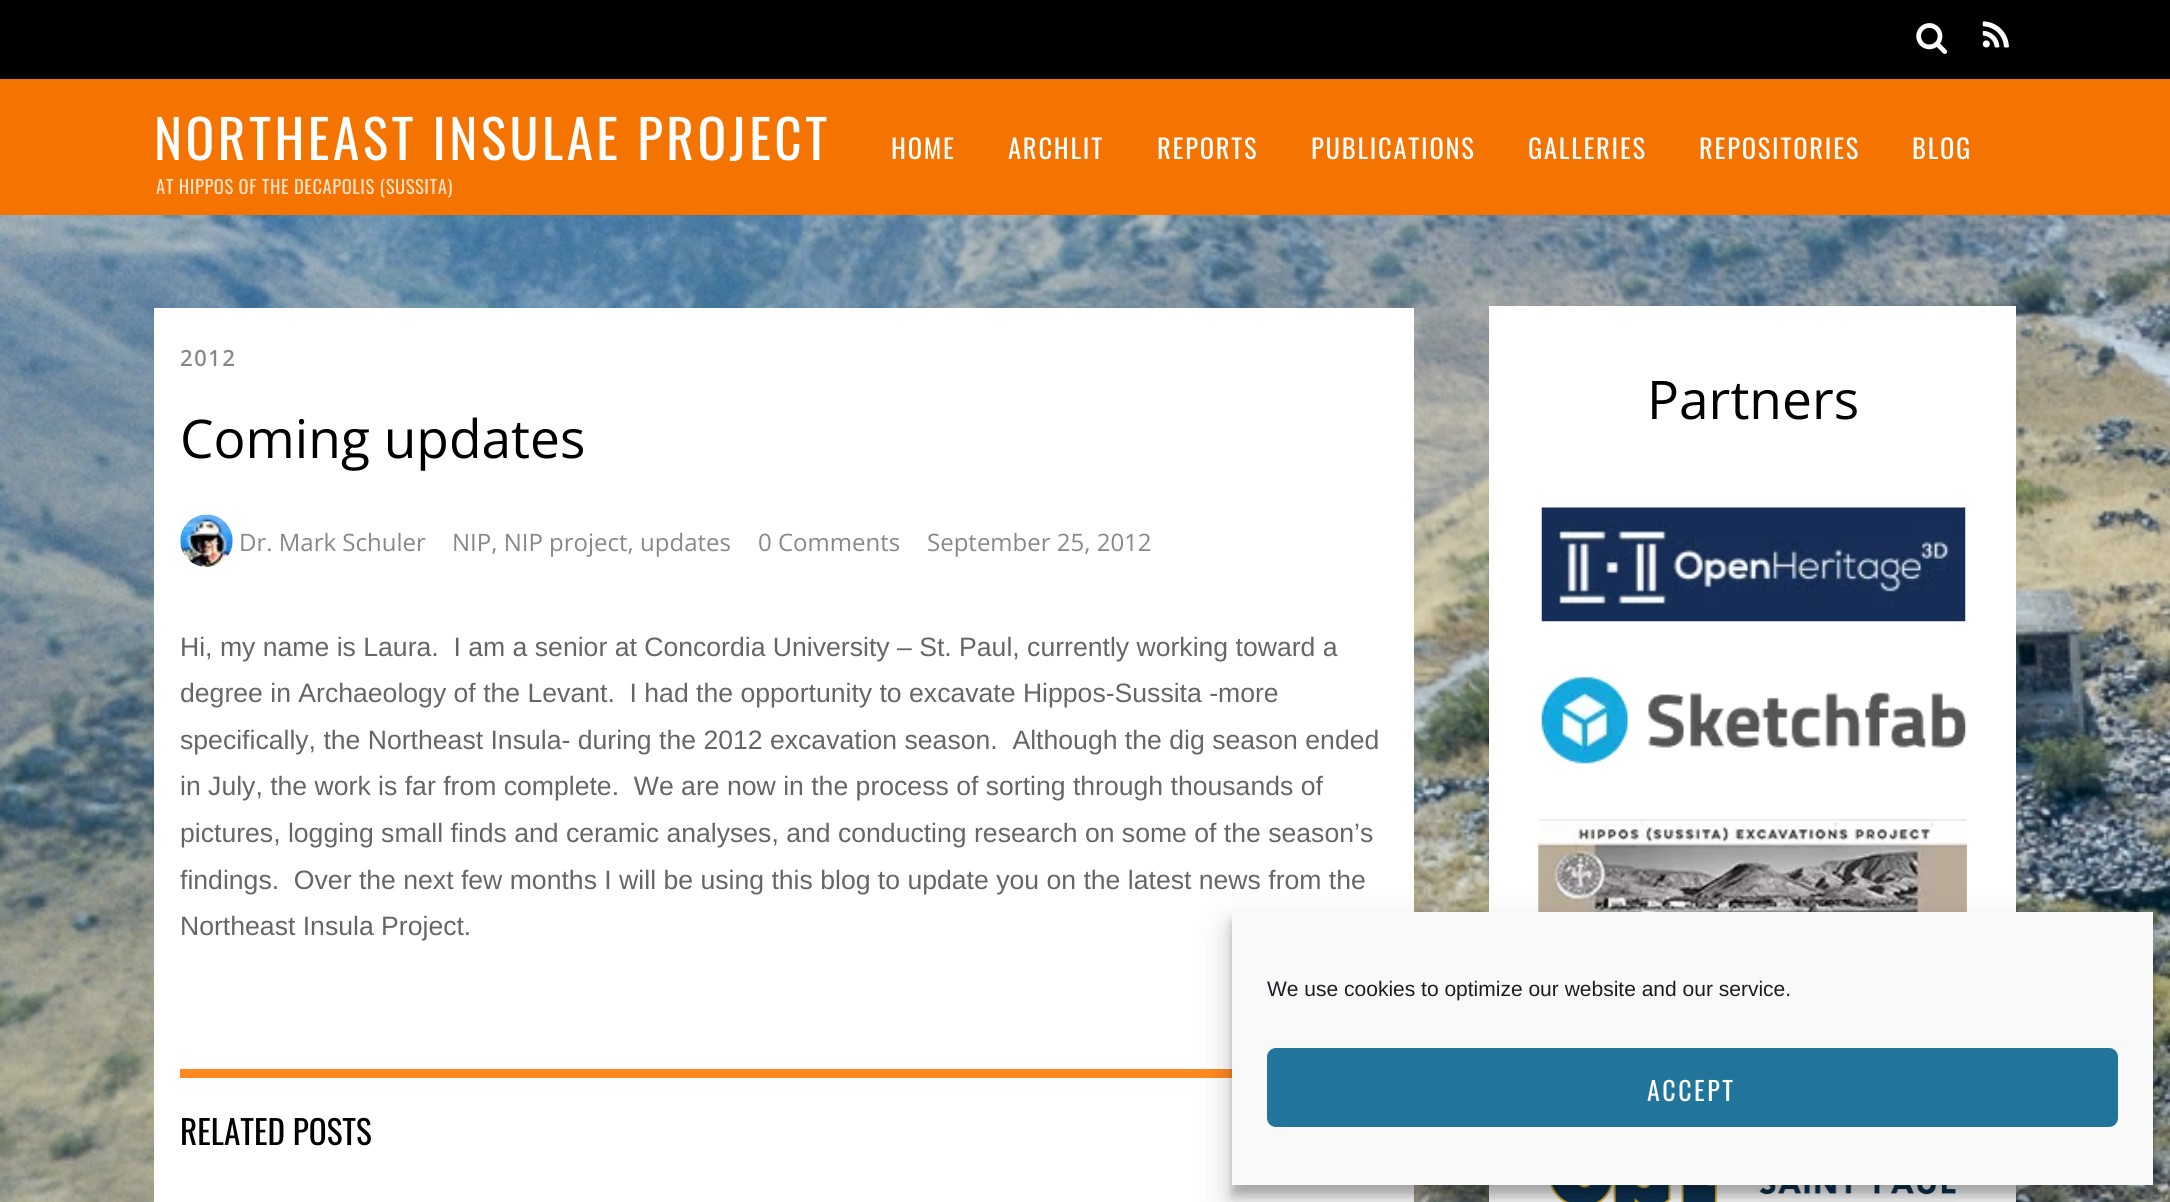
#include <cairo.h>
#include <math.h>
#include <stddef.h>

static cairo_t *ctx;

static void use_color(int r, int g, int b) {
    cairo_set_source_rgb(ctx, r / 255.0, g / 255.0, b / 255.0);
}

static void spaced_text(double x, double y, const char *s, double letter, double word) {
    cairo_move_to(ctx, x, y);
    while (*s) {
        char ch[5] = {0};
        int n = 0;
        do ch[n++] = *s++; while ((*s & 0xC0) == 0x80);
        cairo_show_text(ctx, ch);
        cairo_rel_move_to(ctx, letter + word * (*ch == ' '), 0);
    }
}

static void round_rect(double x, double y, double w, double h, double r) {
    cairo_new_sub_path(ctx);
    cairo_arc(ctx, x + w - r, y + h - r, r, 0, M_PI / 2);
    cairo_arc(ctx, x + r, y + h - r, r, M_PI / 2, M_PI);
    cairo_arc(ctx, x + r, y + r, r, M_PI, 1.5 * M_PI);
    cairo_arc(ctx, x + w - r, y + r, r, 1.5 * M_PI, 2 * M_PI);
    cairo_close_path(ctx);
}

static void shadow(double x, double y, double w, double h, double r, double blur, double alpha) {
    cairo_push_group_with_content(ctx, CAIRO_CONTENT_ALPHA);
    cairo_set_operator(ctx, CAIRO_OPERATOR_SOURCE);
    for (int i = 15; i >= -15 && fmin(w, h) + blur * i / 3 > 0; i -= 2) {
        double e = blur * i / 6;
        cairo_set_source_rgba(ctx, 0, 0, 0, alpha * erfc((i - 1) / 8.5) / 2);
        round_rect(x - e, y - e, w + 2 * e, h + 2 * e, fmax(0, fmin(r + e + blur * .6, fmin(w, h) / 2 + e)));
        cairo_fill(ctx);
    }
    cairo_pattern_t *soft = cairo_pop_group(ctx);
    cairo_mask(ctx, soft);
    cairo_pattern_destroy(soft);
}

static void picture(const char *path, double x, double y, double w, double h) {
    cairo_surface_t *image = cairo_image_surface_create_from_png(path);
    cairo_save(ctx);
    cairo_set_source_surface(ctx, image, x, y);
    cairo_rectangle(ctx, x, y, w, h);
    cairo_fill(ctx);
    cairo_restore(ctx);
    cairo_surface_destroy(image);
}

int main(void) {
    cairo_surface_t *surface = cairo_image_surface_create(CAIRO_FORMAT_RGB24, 2170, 1202);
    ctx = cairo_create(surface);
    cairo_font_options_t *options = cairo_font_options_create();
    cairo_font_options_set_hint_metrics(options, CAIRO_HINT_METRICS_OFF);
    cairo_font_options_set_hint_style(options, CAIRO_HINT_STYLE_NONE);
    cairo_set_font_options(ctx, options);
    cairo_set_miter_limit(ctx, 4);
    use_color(255, 255, 255);
    cairo_paint(ctx);
    picture("img1.png", 0, 215, 2170, 987);
    use_color(245, 115, 0);
    cairo_rectangle(ctx, 0, 79, 2170, 136);
    cairo_fill(ctx);
    use_color(0, 0, 0);
    cairo_rectangle(ctx, 0, 0, 2170, 79);
    cairo_fill(ctx);
    picture("img2.png", 1916, 23, 32, 31);
    picture("img3.png", 1982, 21, 27, 27);
    cairo_select_font_face(ctx, "Oswald", CAIRO_FONT_SLANT_NORMAL, CAIRO_FONT_WEIGHT_NORMAL);
    cairo_set_font_size(ctx, 53.25);
    use_color(255, 255, 255);
    spaced_text(154, 160, "NORTHEAST INSULAE PROJECT", 3.5, 0);
    cairo_set_font_size(ctx, 18.6);
    use_color(253, 227, 204);
    spaced_text(156, 194, "AT HIPPOS OF THE DECAPOLIS (SUSSITA)", 0.55, 0);
    cairo_set_font_size(ctx, 26.6);
    use_color(255, 255, 255);
    spaced_text(891, 159, "HOME", 1.75, 0);
    spaced_text(1008, 159, "ARCHLIT", 1.75, 0);
    spaced_text(1157, 159, "REPORTS", 1.75, 0);
    spaced_text(1311, 159, "PUBLICATIONS", 1.75, 0);
    spaced_text(1528, 159, "GALLERIES", 1.75, 0);
    spaced_text(1699, 159, "REPOSITORIES", 1.75, 0);
    spaced_text(1912, 159, "BLOG", 1.75, 0);
    cairo_rectangle(ctx, 154, 308, 1260, 894);
    cairo_fill(ctx);
    cairo_select_font_face(ctx, "Open Sans", CAIRO_FONT_SLANT_NORMAL, CAIRO_FONT_WEIGHT_BOLD);
    cairo_set_font_size(ctx, 21.5);
    use_color(136, 136, 136);
    spaced_text(180, 366, "2012", 1.75, 0);
    cairo_select_font_face(ctx, "Open Sans", CAIRO_FONT_SLANT_NORMAL, CAIRO_FONT_WEIGHT_NORMAL);
    cairo_set_font_size(ctx, 53.25);
    use_color(0, 0, 0);
    cairo_move_to(ctx, 180, 458);
    cairo_show_text(ctx, "Coming updates");
    picture("img4.png", 180, 514, 53, 53);
    cairo_set_font_size(ctx, 24);
    use_color(136, 136, 136);
    cairo_move_to(ctx, 239, 551);
    cairo_show_text(ctx, "Dr. Mark Schuler");
    cairo_move_to(ctx, 452, 551);
    cairo_show_text(ctx, "NIP, NIP project, updates");
    cairo_move_to(ctx, 758, 551);
    cairo_show_text(ctx, "0 Comments");
    cairo_move_to(ctx, 927, 551);
    cairo_show_text(ctx, "September 25, 2012");
    cairo_select_font_face(ctx, "Liberation Sans", CAIRO_FONT_SLANT_NORMAL, CAIRO_FONT_WEIGHT_NORMAL);
    cairo_set_font_size(ctx, 26.6);
    use_color(102, 102, 102);
    cairo_move_to(ctx, 180, 656);
    cairo_show_text(ctx, "Hi, my name is Laura.  I am a senior at Concordia University – St. Paul, currently working toward a");
    cairo_move_to(ctx, 180, 702);
    cairo_show_text(ctx, "degree in Archaeology of the Levant.  I had the opportunity to excavate Hippos-Sussita -more");
    cairo_move_to(ctx, 180, 749);
    cairo_show_text(ctx, "specifically, the Northeast Insula- during the 2012 excavation season.  Although the dig season ended");
    cairo_move_to(ctx, 180, 795);
    cairo_show_text(ctx, "in July, the work is far from complete.  We are now in the process of sorting through thousands of");
    cairo_move_to(ctx, 180, 842);
    cairo_show_text(ctx, "pictures, logging small finds and ceramic analyses, and conducting research on some of the season’s");
    cairo_move_to(ctx, 180, 889);
    cairo_show_text(ctx, "findings.  Over the next few months I will be using this blog to update you on the latest news from the");
    cairo_move_to(ctx, 180, 935);
    cairo_show_text(ctx, "Northeast Insula Project.");
    use_color(255, 137, 32);
    cairo_rectangle(ctx, 180, 1069, 1052, 9);
    cairo_fill(ctx);
    cairo_select_font_face(ctx, "Oswald", CAIRO_FONT_SLANT_NORMAL, CAIRO_FONT_WEIGHT_NORMAL);
    cairo_set_font_size(ctx, 33.25);
    use_color(0, 0, 0);
    cairo_move_to(ctx, 180, 1145);
    cairo_show_text(ctx, "RELATED POSTS");
    use_color(255, 255, 255);
    cairo_rectangle(ctx, 1489, 306, 527, 896);
    cairo_fill(ctx);
    cairo_select_font_face(ctx, "Open Sans", CAIRO_FONT_SLANT_NORMAL, CAIRO_FONT_WEIGHT_NORMAL);
    cairo_set_font_size(ctx, 53.25);
    use_color(0, 0, 0);
    cairo_move_to(ctx, 1647, 419);
    cairo_show_text(ctx, "Partners");
    picture("img5.png", 1541, 507, 425, 115);
    picture("img6.png", 1541, 676, 425, 88);
    picture("img7.png", 1538, 819, 429, 93);
    picture("img8.png", 1550, 1185, 406, 17);
    use_color(0, 0, 0);
    shadow(1232, 922, 921, 273, 0, 5, 0.23);
    shadow(1232, 929, 921, 273, 0, 17.5, 0.19);
    use_color(249, 249, 249);
    cairo_rectangle(ctx, 1232, 912, 921, 273);
    cairo_fill(ctx);
    cairo_select_font_face(ctx, "Liberation Sans", CAIRO_FONT_SLANT_NORMAL, CAIRO_FONT_WEIGHT_NORMAL);
    cairo_set_font_size(ctx, 21);
    use_color(25, 30, 35);
    cairo_move_to(ctx, 1267, 996);
    cairo_show_text(ctx, "We use cookies to optimize our website and our service.");
    use_color(33, 117, 155);
    round_rect(1268, 1049, 849, 77, 8);
    cairo_fill_preserve(ctx);
    cairo_stroke(ctx);
    cairo_select_font_face(ctx, "Oswald", CAIRO_FONT_SLANT_NORMAL, CAIRO_FONT_WEIGHT_NORMAL);
    cairo_set_font_size(ctx, 26);
    use_color(255, 255, 255);
    spaced_text(1647, 1101, "ACCEPT", 2.5, 0);
    cairo_surface_write_to_png(surface, "result.png");
    cairo_font_options_destroy(options);
    cairo_destroy(ctx);
    cairo_surface_destroy(surface);
    return 0;
}
